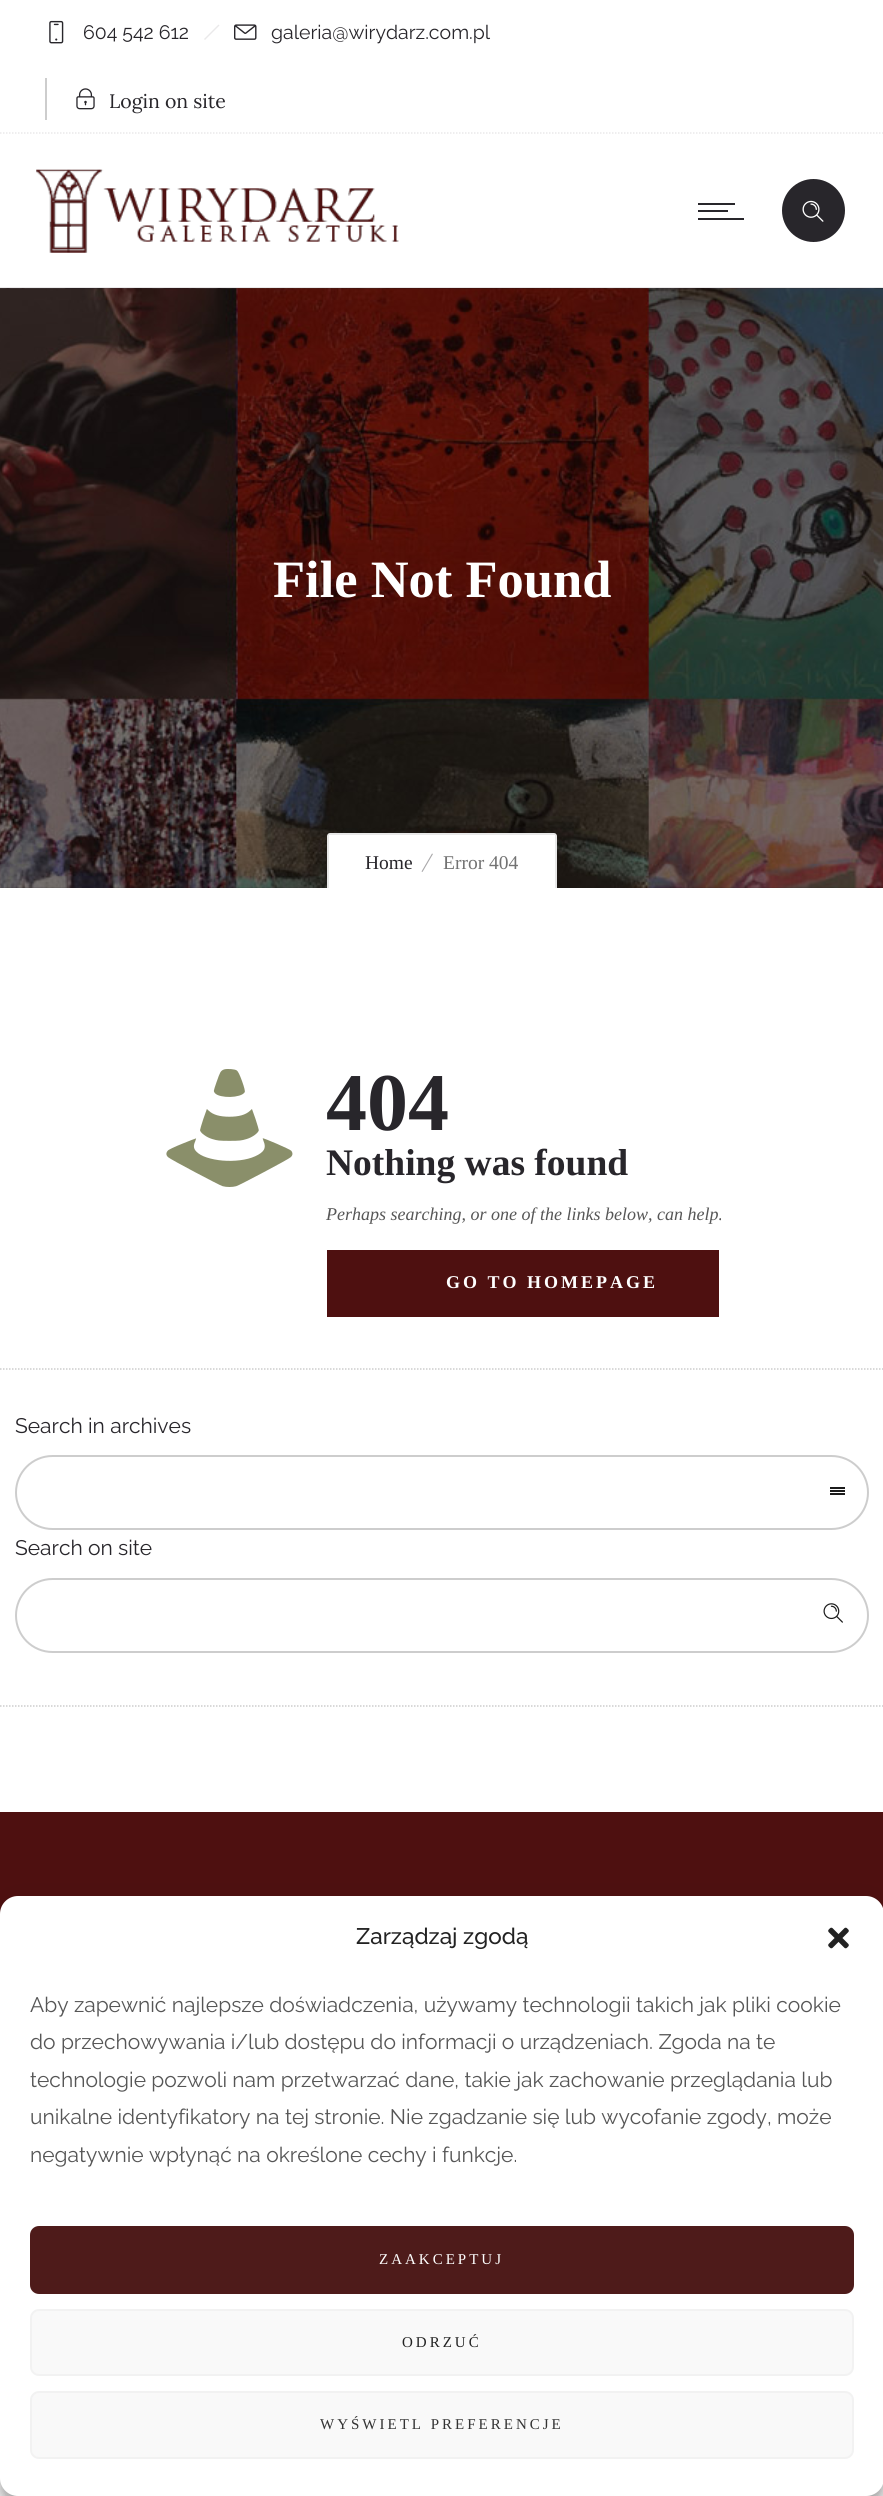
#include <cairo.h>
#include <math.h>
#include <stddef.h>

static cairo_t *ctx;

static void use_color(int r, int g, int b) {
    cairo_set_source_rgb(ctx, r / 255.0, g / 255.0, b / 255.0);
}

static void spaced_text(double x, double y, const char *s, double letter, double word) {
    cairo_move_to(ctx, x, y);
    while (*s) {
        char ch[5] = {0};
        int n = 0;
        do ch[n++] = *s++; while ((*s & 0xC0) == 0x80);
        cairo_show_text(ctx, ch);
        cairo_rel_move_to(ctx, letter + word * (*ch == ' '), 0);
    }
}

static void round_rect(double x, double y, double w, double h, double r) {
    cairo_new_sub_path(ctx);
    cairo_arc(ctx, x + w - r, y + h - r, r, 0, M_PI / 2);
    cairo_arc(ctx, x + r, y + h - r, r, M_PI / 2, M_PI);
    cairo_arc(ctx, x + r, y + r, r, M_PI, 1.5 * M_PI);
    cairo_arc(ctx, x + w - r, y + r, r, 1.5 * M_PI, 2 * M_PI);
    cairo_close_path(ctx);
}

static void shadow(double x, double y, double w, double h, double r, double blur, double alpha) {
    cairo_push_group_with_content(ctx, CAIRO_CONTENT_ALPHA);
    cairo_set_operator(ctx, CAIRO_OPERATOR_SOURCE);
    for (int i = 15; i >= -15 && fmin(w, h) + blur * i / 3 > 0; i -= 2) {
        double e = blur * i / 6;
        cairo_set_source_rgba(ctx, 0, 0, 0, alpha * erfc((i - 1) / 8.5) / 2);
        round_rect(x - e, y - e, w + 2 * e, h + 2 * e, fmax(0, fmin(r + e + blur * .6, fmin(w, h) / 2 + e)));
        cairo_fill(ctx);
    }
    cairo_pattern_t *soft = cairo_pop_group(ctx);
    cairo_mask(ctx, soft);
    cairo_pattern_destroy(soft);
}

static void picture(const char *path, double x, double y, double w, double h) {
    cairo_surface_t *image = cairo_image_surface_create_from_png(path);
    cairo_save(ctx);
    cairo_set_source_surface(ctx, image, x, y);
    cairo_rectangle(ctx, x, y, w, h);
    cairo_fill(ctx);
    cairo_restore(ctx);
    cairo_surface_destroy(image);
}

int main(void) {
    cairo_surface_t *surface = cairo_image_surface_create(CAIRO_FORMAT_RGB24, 883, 2496);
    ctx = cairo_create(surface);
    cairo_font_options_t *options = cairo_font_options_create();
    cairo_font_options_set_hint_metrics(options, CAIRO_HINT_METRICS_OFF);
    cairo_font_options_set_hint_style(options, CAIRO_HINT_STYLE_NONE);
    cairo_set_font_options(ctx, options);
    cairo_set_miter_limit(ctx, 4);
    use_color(255, 255, 255);
    cairo_paint(ctx);
    picture("img6.png", 0, 288, 883, 600);
    cairo_set_source_rgba(ctx, 0.157, 0.149, 0.169, 0.1);
    cairo_rectangle(ctx, 0, 287, 883, 2);
    cairo_fill(ctx);
    cairo_new_path(ctx);
    cairo_move_to(ctx, 0, 133);
    cairo_line_to(ctx, 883.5, 133);
    use_color(234, 233, 234);
    cairo_set_line_width(ctx, 1.5);
    cairo_set_dash(ctx, (double[]){1.5, 1.5}, 2, 0);
    cairo_stroke(ctx);
    picture("img1.png", 49, 20, 15, 24);
    cairo_select_font_face(ctx, "Raleway", CAIRO_FONT_SLANT_NORMAL, CAIRO_FONT_WEIGHT_NORMAL);
    cairo_set_font_size(ctx, 19.5);
    use_color(40, 38, 43);
    cairo_move_to(ctx, 83, 39);
    cairo_show_text(ctx, "604 542 612");
    use_color(234, 233, 234);
    cairo_new_path(ctx);
    cairo_move_to(ctx, 218.5, 24.5);
    cairo_line_to(ctx, 219.5, 25.5);
    cairo_line_to(ctx, 205, 40);
    cairo_line_to(ctx, 204, 39);
    cairo_close_path(ctx);
    cairo_fill(ctx);
    picture("img2.png", 234, 24, 23, 16);
    use_color(40, 38, 43);
    cairo_move_to(ctx, 271, 39);
    cairo_show_text(ctx, "galeria@wirydarz.com.pl");
    use_color(205, 205, 205);
    cairo_rectangle(ctx, 45, 78, 2, 42);
    cairo_fill(ctx);
    picture("img3.png", 76, 88, 19, 22);
    cairo_select_font_face(ctx, "Lora", CAIRO_FONT_SLANT_NORMAL, CAIRO_FONT_WEIGHT_NORMAL);
    use_color(40, 38, 43);
    cairo_move_to(ctx, 109, 108);
    cairo_show_text(ctx, "Login on site");
    picture("img4.png", 36, 169, 363, 84);
    cairo_rectangle(ctx, 698, 203, 37, 2);
    cairo_fill(ctx);
    cairo_rectangle(ctx, 698, 210, 30, 2);
    cairo_fill(ctx);
    cairo_rectangle(ctx, 698, 218, 46, 2);
    cairo_fill(ctx);
    cairo_arc(ctx, 813.5, 210.5, 31.5, 0, 2 * M_PI);
    cairo_fill(ctx);
    picture("img5.png", 802, 200, 22, 22);
    cairo_set_source_rgba(ctx, 0.106, 0.106, 0.106, 0.1);
    cairo_rectangle(ctx, 0, 887, 883, 1);
    cairo_fill(ctx);
    cairo_select_font_face(ctx, "Liberation Serif", CAIRO_FONT_SLANT_NORMAL, CAIRO_FONT_WEIGHT_BOLD);
    cairo_set_font_size(ctx, 52.5);
    use_color(255, 255, 255);
    cairo_move_to(ctx, 273, 597);
    cairo_show_text(ctx, "File Not Found");
    cairo_new_path(ctx);
    cairo_move_to(ctx, 330, 833);
    cairo_line_to(ctx, 554, 833);
    cairo_curve_to(ctx, 555.5, 833, 557, 834.5, 557, 836);
    cairo_line_to(ctx, 557, 888);
    cairo_line_to(ctx, 327, 888);
    cairo_line_to(ctx, 327, 836);
    cairo_curve_to(ctx, 327, 834.5, 328.5, 833, 330, 833);
    cairo_close_path(ctx);
    cairo_fill(ctx);
    cairo_set_source_rgba(ctx, 0.106, 0.106, 0.106, 0.1);
    cairo_rectangle(ctx, 329, 833, 226, 2);
    cairo_fill(ctx);
    cairo_rectangle(ctx, 555, 834, 2, 54);
    cairo_fill(ctx);
    cairo_rectangle(ctx, 327, 834, 2, 54);
    cairo_fill(ctx);
    cairo_select_font_face(ctx, "Liberation Serif", CAIRO_FONT_SLANT_NORMAL, CAIRO_FONT_WEIGHT_NORMAL);
    cairo_set_font_size(ctx, 19.5);
    use_color(40, 38, 43);
    cairo_move_to(ctx, 365, 869);
    cairo_show_text(ctx, "Home");
    use_color(169, 168, 170);
    cairo_new_path(ctx);
    cairo_move_to(ctx, 432, 853.5);
    cairo_line_to(ctx, 433, 854);
    cairo_line_to(ctx, 422.5, 872);
    cairo_line_to(ctx, 421.5, 871.5);
    cairo_close_path(ctx);
    cairo_fill(ctx);
    use_color(114, 114, 114);
    cairo_move_to(ctx, 443, 869);
    cairo_show_text(ctx, "Error 404");
    picture("img7.png", 166, 1069, 127, 118);
    cairo_select_font_face(ctx, "Liberation Serif", CAIRO_FONT_SLANT_NORMAL, CAIRO_FONT_WEIGHT_BOLD);
    cairo_set_font_size(ctx, 82);
    use_color(40, 38, 43);
    cairo_move_to(ctx, 326, 1130);
    cairo_show_text(ctx, "404");
    cairo_set_font_size(ctx, 37.5);
    cairo_move_to(ctx, 326, 1175);
    cairo_show_text(ctx, "Nothing was found");
    cairo_select_font_face(ctx, "Liberation Serif", CAIRO_FONT_SLANT_ITALIC, CAIRO_FONT_WEIGHT_NORMAL);
    cairo_set_font_size(ctx, 18);
    use_color(86, 86, 86);
    cairo_move_to(ctx, 326, 1220);
    cairo_show_text(ctx, "Perhaps searching, or one of the links below, can help.");
    use_color(78, 16, 16);
    cairo_rectangle(ctx, 327, 1250, 392, 67);
    cairo_fill(ctx);
    cairo_select_font_face(ctx, "Liberation Serif", CAIRO_FONT_SLANT_NORMAL, CAIRO_FONT_WEIGHT_BOLD);
    use_color(255, 255, 255);
    spaced_text(446, 1288, "GO TO HOMEPAGE", 3, 0);
    cairo_new_path(ctx);
    cairo_move_to(ctx, 0, 1369);
    cairo_line_to(ctx, 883.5, 1369);
    use_color(205, 205, 205);
    cairo_stroke(ctx);
    cairo_new_path(ctx);
    cairo_move_to(ctx, 0, 1706);
    cairo_line_to(ctx, 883.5, 1706);
    cairo_stroke(ctx);
    cairo_select_font_face(ctx, "Raleway", CAIRO_FONT_SLANT_NORMAL, CAIRO_FONT_WEIGHT_NORMAL);
    cairo_set_font_size(ctx, 21);
    use_color(40, 38, 43);
    cairo_move_to(ctx, 15, 1433);
    cairo_show_text(ctx, "Search in archives");
    round_rect(16, 1456, 852, 73, 36.5);
    use_color(205, 205, 205);
    cairo_set_line_width(ctx, 2);
    cairo_set_dash(ctx, NULL, 0, 0);
    cairo_stroke(ctx);
    use_color(27, 27, 27);
    cairo_rectangle(ctx, 830, 1493, 15, 2);
    cairo_fill(ctx);
    cairo_rectangle(ctx, 830, 1487, 15, 2);
    cairo_fill(ctx);
    cairo_rectangle(ctx, 830, 1490, 15, 2);
    cairo_fill(ctx);
    use_color(40, 38, 43);
    cairo_move_to(ctx, 15, 1555);
    cairo_show_text(ctx, "Search on site");
    picture("img8.png", 823, 1603, 20, 20);
    round_rect(16, 1579, 852, 73, 36.5);
    use_color(205, 205, 205);
    cairo_stroke(ctx);
    use_color(78, 16, 16);
    cairo_rectangle(ctx, 0, 1812, 883, 102);
    cairo_fill(ctx);
    use_color(0, 0, 0);
    shadow(0, 1905, 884, 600, 18, 4.5, 0.23);
    shadow(0, 1911, 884, 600, 18, 15, 0.19);
    use_color(255, 255, 255);
    round_rect(0, 1896, 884, 600, 18);
    cairo_fill(ctx);
    cairo_select_font_face(ctx, "Raleway Medium", CAIRO_FONT_SLANT_NORMAL, CAIRO_FONT_WEIGHT_NORMAL);
    cairo_set_font_size(ctx, 22.5);
    use_color(34, 34, 34);
    cairo_move_to(ctx, 356, 1944);
    cairo_show_text(ctx, "Zarządzaj zgodą");
    picture("img9.png", 828, 1927, 21, 22);
    cairo_select_font_face(ctx, "Raleway", CAIRO_FONT_SLANT_NORMAL, CAIRO_FONT_WEIGHT_NORMAL);
    cairo_set_font_size(ctx, 21);
    use_color(86, 86, 86);
    cairo_move_to(ctx, 30, 2012);
    cairo_show_text(ctx, "Aby zapewnić najlepsze doświadczenia, używamy technologii takich jak pliki cookie");
    cairo_move_to(ctx, 30, 2049);
    cairo_show_text(ctx, "do przechowywania i/lub dostępu do informacji o urządzeniach. Zgoda na te");
    cairo_move_to(ctx, 30, 2087);
    cairo_show_text(ctx, "technologie pozwoli nam przetwarzać dane, takie jak zachowanie przeglądania lub");
    cairo_move_to(ctx, 30, 2124);
    cairo_show_text(ctx, "unikalne identyfikatory na tej stronie. Nie zgadzanie się lub wycofanie zgody, może");
    cairo_move_to(ctx, 30, 2162);
    cairo_show_text(ctx, "negatywnie wpłynąć na określone cechy i funkcje.");
    use_color(78, 27, 26);
    round_rect(31, 2227, 822, 66, 8);
    cairo_fill_preserve(ctx);
    cairo_stroke(ctx);
    cairo_select_font_face(ctx, "Liberation Serif", CAIRO_FONT_SLANT_NORMAL, CAIRO_FONT_WEIGHT_NORMAL);
    cairo_set_font_size(ctx, 15);
    use_color(255, 255, 255);
    spaced_text(379, 2264, "ZAAKCEPTUJ", 3, 0);
    use_color(249, 249, 249);
    round_rect(31, 2310, 822, 65, 8);
    cairo_fill_preserve(ctx);
    use_color(242, 242, 242);
    cairo_stroke(ctx);
    use_color(34, 34, 34);
    spaced_text(402, 2347, "ODRZUĆ", 3, 0);
    use_color(249, 249, 249);
    round_rect(31, 2392, 822, 66, 8);
    cairo_fill_preserve(ctx);
    use_color(242, 242, 242);
    cairo_stroke(ctx);
    use_color(51, 51, 51);
    spaced_text(320, 2429, "WYŚWIETL PREFERENCJE", 3, 0);
    cairo_surface_write_to_png(surface, "result.png");
    cairo_font_options_destroy(options);
    cairo_destroy(ctx);
    cairo_surface_destroy(surface);
    return 0;
}
